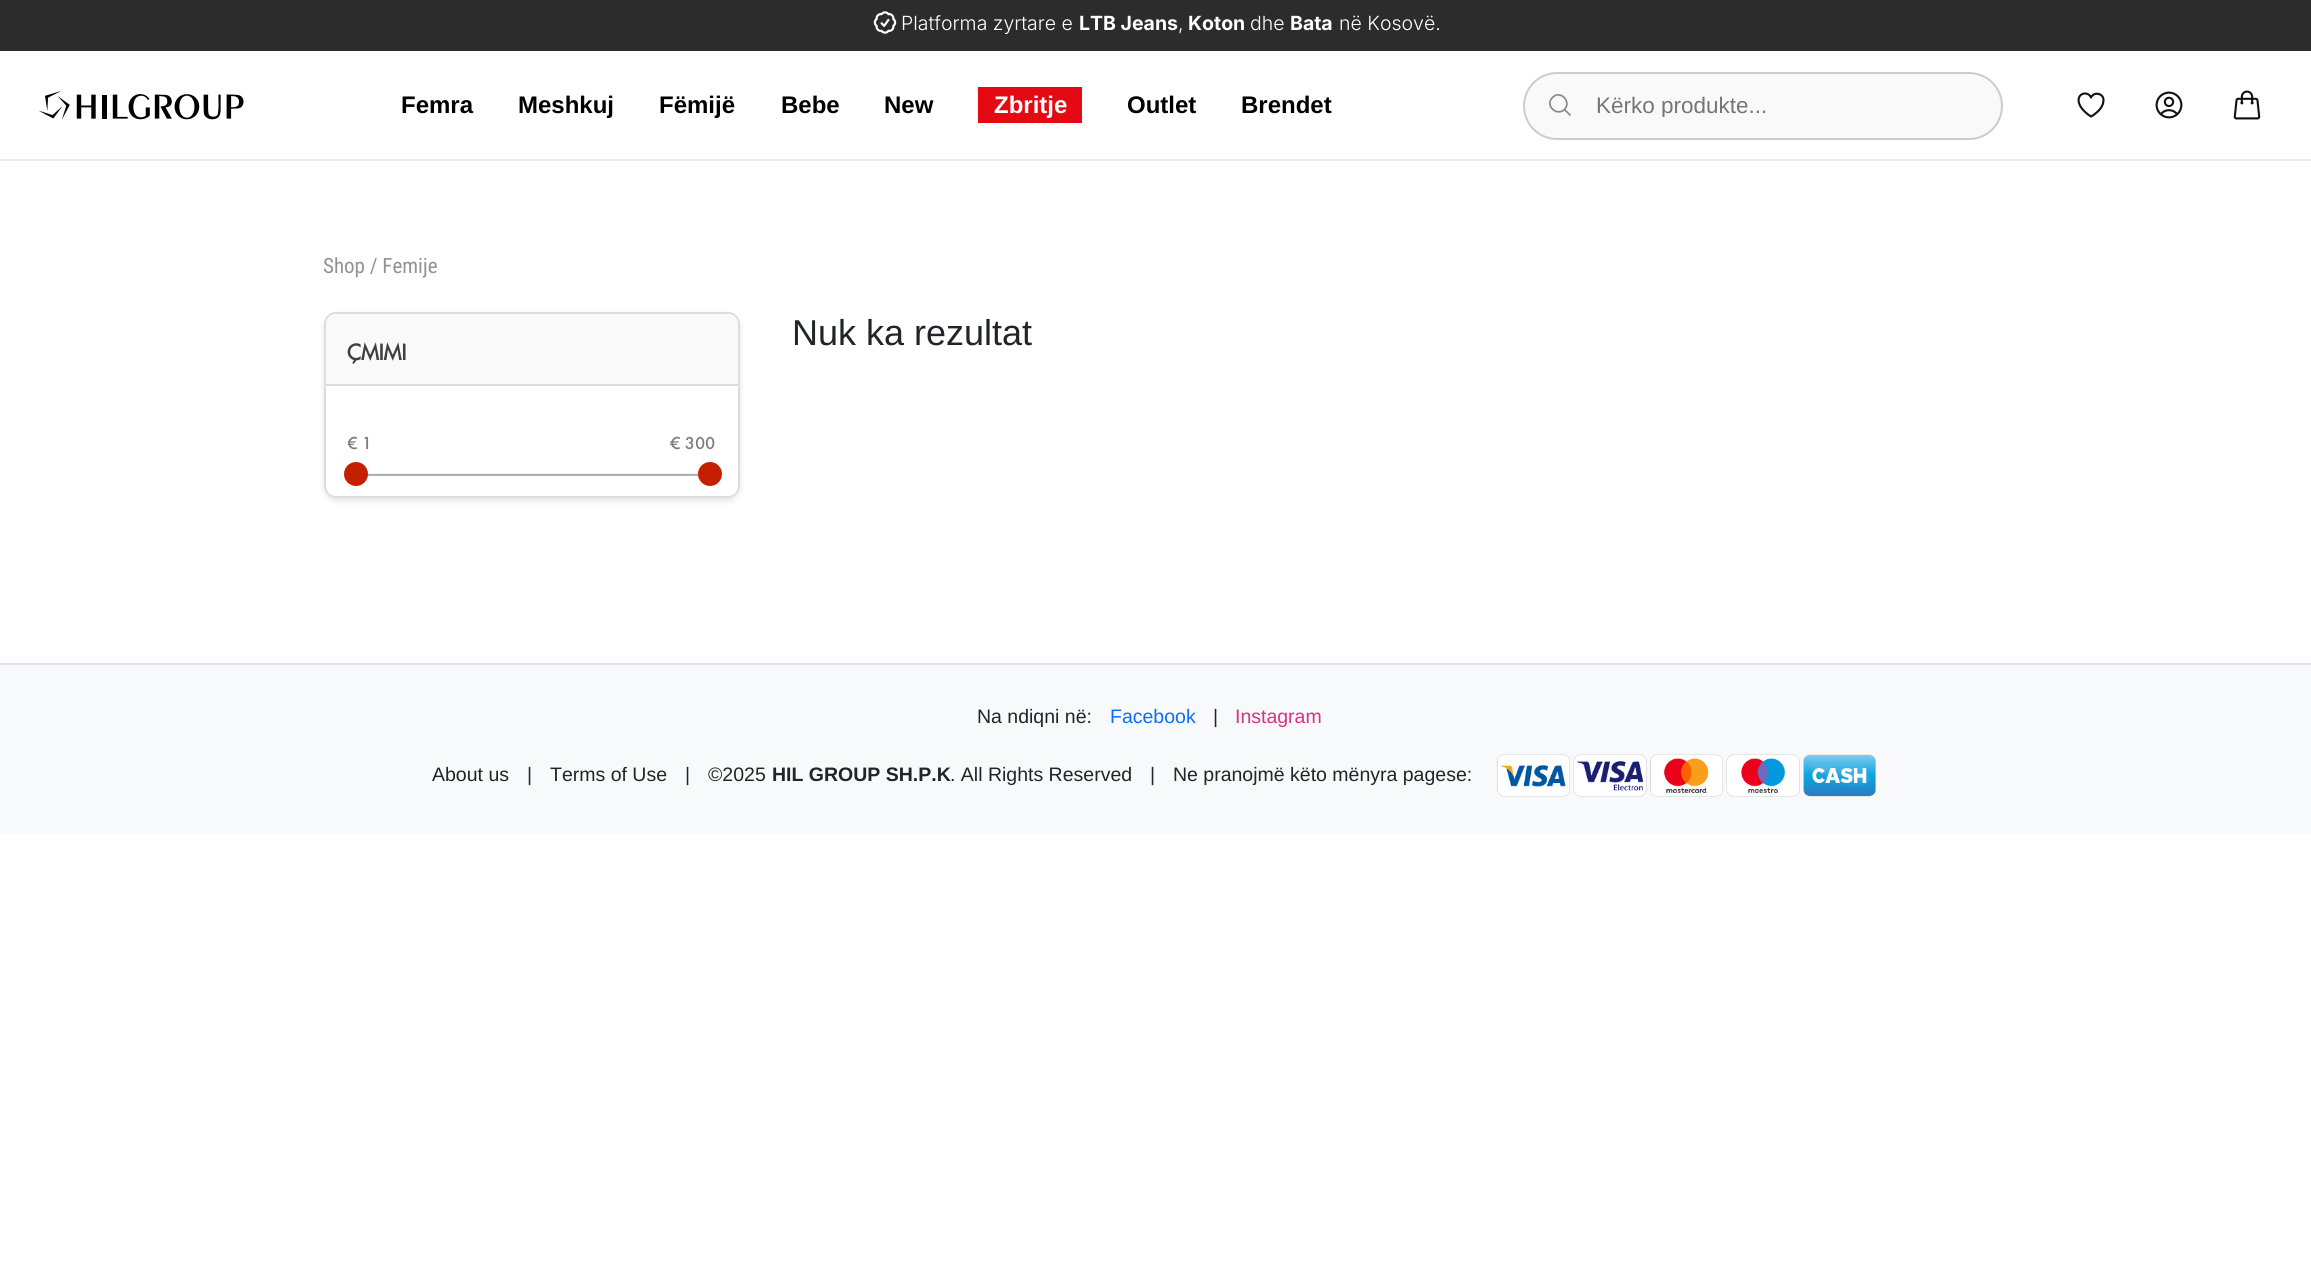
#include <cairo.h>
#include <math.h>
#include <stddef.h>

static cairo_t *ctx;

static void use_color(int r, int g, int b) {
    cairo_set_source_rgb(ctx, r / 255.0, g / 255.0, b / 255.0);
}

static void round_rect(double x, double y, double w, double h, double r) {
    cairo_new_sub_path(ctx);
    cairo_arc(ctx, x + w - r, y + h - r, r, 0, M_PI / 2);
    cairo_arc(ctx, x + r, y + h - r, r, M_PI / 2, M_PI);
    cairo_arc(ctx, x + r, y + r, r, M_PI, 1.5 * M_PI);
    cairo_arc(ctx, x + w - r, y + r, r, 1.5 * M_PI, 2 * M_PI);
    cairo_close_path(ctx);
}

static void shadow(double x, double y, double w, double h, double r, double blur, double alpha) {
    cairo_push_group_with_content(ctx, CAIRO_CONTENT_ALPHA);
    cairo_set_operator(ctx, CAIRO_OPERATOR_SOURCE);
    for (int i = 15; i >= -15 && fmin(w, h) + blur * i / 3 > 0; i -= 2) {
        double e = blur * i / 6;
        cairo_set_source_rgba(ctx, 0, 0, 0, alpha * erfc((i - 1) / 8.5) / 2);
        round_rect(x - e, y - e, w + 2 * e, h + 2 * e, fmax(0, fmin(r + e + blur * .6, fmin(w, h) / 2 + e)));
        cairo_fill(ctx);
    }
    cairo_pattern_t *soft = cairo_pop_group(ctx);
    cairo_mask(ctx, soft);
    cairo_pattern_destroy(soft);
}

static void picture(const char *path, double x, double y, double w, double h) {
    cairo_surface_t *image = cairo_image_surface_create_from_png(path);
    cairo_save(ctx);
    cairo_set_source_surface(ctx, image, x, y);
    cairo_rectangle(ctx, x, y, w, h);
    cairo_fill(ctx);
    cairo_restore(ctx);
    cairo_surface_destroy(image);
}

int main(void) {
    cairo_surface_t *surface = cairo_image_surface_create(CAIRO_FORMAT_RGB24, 2311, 1268);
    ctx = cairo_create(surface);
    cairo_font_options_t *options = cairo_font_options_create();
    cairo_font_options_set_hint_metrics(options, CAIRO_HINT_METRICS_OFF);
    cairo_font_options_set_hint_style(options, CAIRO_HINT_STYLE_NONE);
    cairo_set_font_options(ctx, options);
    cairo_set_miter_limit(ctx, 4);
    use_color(255, 255, 255);
    cairo_paint(ctx);
    use_color(44, 44, 44);
    cairo_rectangle(ctx, 0, 0, 2311, 51);
    cairo_fill(ctx);
    picture("img1.png", 873, 11, 24, 23);
    cairo_select_font_face(ctx, "Inter Light", CAIRO_FONT_SLANT_NORMAL, CAIRO_FONT_WEIGHT_NORMAL);
    cairo_set_font_size(ctx, 19.5);
    use_color(255, 255, 255);
    cairo_move_to(ctx, 901, 30);
    cairo_show_text(ctx, "Platforma zyrtare e");
    cairo_select_font_face(ctx, "Inter", CAIRO_FONT_SLANT_NORMAL, CAIRO_FONT_WEIGHT_BOLD);
    cairo_move_to(ctx, 1079, 30);
    cairo_show_text(ctx, "LTB Jeans");
    cairo_select_font_face(ctx, "Inter Light", CAIRO_FONT_SLANT_NORMAL, CAIRO_FONT_WEIGHT_NORMAL);
    cairo_move_to(ctx, 1178, 30);
    cairo_show_text(ctx, ",");
    cairo_select_font_face(ctx, "Inter", CAIRO_FONT_SLANT_NORMAL, CAIRO_FONT_WEIGHT_BOLD);
    cairo_move_to(ctx, 1188, 30);
    cairo_show_text(ctx, "Koton");
    cairo_select_font_face(ctx, "Inter Light", CAIRO_FONT_SLANT_NORMAL, CAIRO_FONT_WEIGHT_NORMAL);
    cairo_move_to(ctx, 1250, 30);
    cairo_show_text(ctx, "dhe");
    cairo_select_font_face(ctx, "Inter", CAIRO_FONT_SLANT_NORMAL, CAIRO_FONT_WEIGHT_BOLD);
    cairo_move_to(ctx, 1290, 30);
    cairo_show_text(ctx, "Bata");
    cairo_select_font_face(ctx, "Inter Light", CAIRO_FONT_SLANT_NORMAL, CAIRO_FONT_WEIGHT_NORMAL);
    cairo_move_to(ctx, 1339, 30);
    cairo_show_text(ctx, "në Kosovë.");
    use_color(238, 238, 238);
    cairo_rectangle(ctx, 0, 159, 2311, 2);
    cairo_fill(ctx);
    picture("img2.png", 38, 91, 206, 29);
    cairo_select_font_face(ctx, "Liberation Sans", CAIRO_FONT_SLANT_NORMAL, CAIRO_FONT_WEIGHT_BOLD);
    cairo_set_font_size(ctx, 24);
    use_color(0, 0, 0);
    cairo_move_to(ctx, 401, 113);
    cairo_show_text(ctx, "Femra");
    cairo_move_to(ctx, 518, 113);
    cairo_show_text(ctx, "Meshkuj");
    cairo_move_to(ctx, 659, 113);
    cairo_show_text(ctx, "Fëmijë");
    cairo_move_to(ctx, 781, 113);
    cairo_show_text(ctx, "Bebe");
    cairo_move_to(ctx, 884, 113);
    cairo_show_text(ctx, "New");
    use_color(229, 9, 20);
    cairo_rectangle(ctx, 978, 87, 104, 36);
    cairo_fill(ctx);
    use_color(255, 255, 255);
    cairo_move_to(ctx, 994, 113);
    cairo_show_text(ctx, "Zbritje");
    use_color(0, 0, 0);
    cairo_move_to(ctx, 1127, 113);
    cairo_show_text(ctx, "Outlet");
    cairo_move_to(ctx, 1241, 113);
    cairo_show_text(ctx, "Brendet");
    use_color(249, 249, 249);
    round_rect(1524, 73, 478, 66, 33);
    cairo_fill_preserve(ctx);
    use_color(204, 204, 204);
    cairo_stroke(ctx);
    cairo_new_path(ctx);
    cairo_move_to(ctx, 1570, 115);
    cairo_line_to(ctx, 1564.5, 109.5);
    cairo_move_to(ctx, 1564.5, 109.5);
    cairo_curve_to(ctx, 1572, 101.5, 1560, 89.5, 1552.5, 97.5);
    cairo_curve_to(ctx, 1544.5, 105, 1556.5, 117, 1564.5, 109.5);
    cairo_close_path(ctx);
    use_color(136, 136, 136);
    cairo_set_line_width(ctx, 1.7);
    cairo_set_line_cap(ctx, CAIRO_LINE_CAP_ROUND);
    cairo_set_line_join(ctx, CAIRO_LINE_JOIN_ROUND);
    cairo_stroke(ctx);
    cairo_save(ctx);
    cairo_rectangle(ctx, 1596, 92, 381, 25);
    cairo_clip(ctx);
    cairo_select_font_face(ctx, "Liberation Sans", CAIRO_FONT_SLANT_NORMAL, CAIRO_FONT_WEIGHT_NORMAL);
    cairo_set_font_size(ctx, 22.5);
    use_color(117, 117, 117);
    cairo_move_to(ctx, 1596, 113);
    cairo_show_text(ctx, "Kërko produkte...");
    cairo_restore(ctx);
    cairo_new_path(ctx);
    cairo_move_to(ctx, 2103.5, 100);
    cairo_curve_to(ctx, 2103.5, 93, 2093.5, 91.5, 2091, 97.5);
    cairo_curve_to(ctx, 2087.5, 89.5, 2073.5, 94, 2080.5, 106.5);
    cairo_curve_to(ctx, 2083, 110.5, 2087, 114, 2091, 116.5);
    cairo_curve_to(ctx, 2091, 116.5, 2103.5, 110, 2103.5, 100);
    cairo_close_path(ctx);
    use_color(17, 17, 17);
    cairo_set_line_width(ctx, 2.1);
    cairo_stroke(ctx);
    picture("img3.png", 2155, 91, 28, 28);
    picture("img4.png", 2233, 90, 28, 30);
    cairo_select_font_face(ctx, "Roboto Condensed", CAIRO_FONT_SLANT_NORMAL, CAIRO_FONT_WEIGHT_NORMAL);
    cairo_set_font_size(ctx, 21);
    use_color(146, 146, 146);
    cairo_move_to(ctx, 323, 273);
    cairo_show_text(ctx, "Shop / Femije");
    cairo_select_font_face(ctx, "Liberation Sans", CAIRO_FONT_SLANT_NORMAL, CAIRO_FONT_WEIGHT_NORMAL);
    cairo_set_font_size(ctx, 36);
    use_color(33, 37, 41);
    cairo_move_to(ctx, 792, 345);
    cairo_show_text(ctx, "Nuk ka rezultat");
    cairo_save(ctx);
    cairo_set_fill_rule(ctx, CAIRO_FILL_RULE_EVEN_ODD);
    cairo_new_path(ctx);
    cairo_move_to(ctx, 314, 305);
    cairo_line_to(ctx, 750, 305);
    cairo_line_to(ctx, 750, 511);
    cairo_line_to(ctx, 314, 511);
    cairo_close_path(ctx);
    cairo_move_to(ctx, 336, 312);
    cairo_line_to(ctx, 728, 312);
    cairo_curve_to(ctx, 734.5, 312, 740, 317.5, 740, 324);
    cairo_line_to(ctx, 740, 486);
    cairo_curve_to(ctx, 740, 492.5, 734.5, 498, 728, 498);
    cairo_line_to(ctx, 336, 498);
    cairo_curve_to(ctx, 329.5, 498, 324, 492.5, 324, 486);
    cairo_line_to(ctx, 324, 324);
    cairo_curve_to(ctx, 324, 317.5, 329.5, 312, 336, 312);
    cairo_close_path(ctx);
    cairo_clip(ctx);
    use_color(0, 0, 0);
    shadow(324, 315, 416, 186, 12, 3, 0.1);
    cairo_restore(ctx);
    round_rect(325, 313, 414, 184, 11);
    use_color(221, 221, 221);
    cairo_set_line_width(ctx, 2);
    cairo_set_line_cap(ctx, CAIRO_LINE_CAP_BUTT);
    cairo_set_line_join(ctx, CAIRO_LINE_JOIN_MITER);
    cairo_stroke(ctx);
    use_color(249, 249, 249);
    cairo_new_path(ctx);
    cairo_move_to(ctx, 337, 314);
    cairo_line_to(ctx, 727, 314);
    cairo_curve_to(ctx, 733, 314, 738, 319, 738, 325);
    cairo_line_to(ctx, 738, 386);
    cairo_line_to(ctx, 326, 386);
    cairo_line_to(ctx, 326, 325);
    cairo_curve_to(ctx, 326, 319, 331, 314, 337, 314);
    cairo_close_path(ctx);
    cairo_fill(ctx);
    use_color(221, 221, 221);
    cairo_rectangle(ctx, 326, 384, 412, 2);
    cairo_fill(ctx);
    cairo_select_font_face(ctx, "Futura", CAIRO_FONT_SLANT_NORMAL, CAIRO_FONT_WEIGHT_BOLD);
    cairo_set_font_size(ctx, 21);
    use_color(63, 63, 63);
    cairo_move_to(ctx, 347, 360);
    cairo_show_text(ctx, "ÇMIMI");
    cairo_save(ctx);
    cairo_rectangle(ctx, 348, 431, 183, 27);
    cairo_clip(ctx);
    cairo_select_font_face(ctx, "Futura Medium", CAIRO_FONT_SLANT_NORMAL, CAIRO_FONT_WEIGHT_NORMAL);
    cairo_set_font_size(ctx, 18);
    use_color(125, 125, 125);
    cairo_move_to(ctx, 347, 449);
    cairo_show_text(ctx, "€ 1");
    cairo_restore(ctx);
    cairo_select_font_face(ctx, "Futura Medium", CAIRO_FONT_SLANT_NORMAL, CAIRO_FONT_WEIGHT_NORMAL);
    cairo_set_font_size(ctx, 18);
    use_color(125, 125, 125);
    cairo_move_to(ctx, 670, 449);
    cairo_show_text(ctx, "€ 300");
    use_color(241, 241, 241);
    cairo_rectangle(ctx, 360, 473, 339, 1);
    cairo_fill(ctx);
    use_color(175, 175, 175);
    cairo_rectangle(ctx, 360, 474, 339, 2);
    cairo_fill(ctx);
    use_color(196, 32, 0);
    cairo_arc(ctx, 356, 474, 12, 0, 2 * M_PI);
    cairo_fill(ctx);
    cairo_arc(ctx, 710, 474, 12, 0, 2 * M_PI);
    cairo_fill(ctx);
    use_color(248, 249, 250);
    cairo_rectangle(ctx, 0, 665, 2311, 169);
    cairo_fill(ctx);
    use_color(222, 226, 230);
    cairo_rectangle(ctx, 0, 663, 2311, 2);
    cairo_fill(ctx);
    cairo_select_font_face(ctx, "Liberation Sans", CAIRO_FONT_SLANT_NORMAL, CAIRO_FONT_WEIGHT_NORMAL);
    cairo_set_font_size(ctx, 19.5);
    use_color(33, 37, 41);
    cairo_move_to(ctx, 977, 723);
    cairo_show_text(ctx, "Na ndiqni në:");
    use_color(13, 110, 253);
    cairo_move_to(ctx, 1110, 723);
    cairo_show_text(ctx, "Facebook");
    use_color(33, 37, 41);
    cairo_move_to(ctx, 1213, 723);
    cairo_show_text(ctx, "|");
    use_color(214, 51, 132);
    cairo_move_to(ctx, 1235, 723);
    cairo_show_text(ctx, "Instagram");
    use_color(33, 37, 41);
    cairo_move_to(ctx, 432, 781);
    cairo_show_text(ctx, "About us");
    cairo_move_to(ctx, 527, 781);
    cairo_show_text(ctx, "|");
    cairo_move_to(ctx, 550, 781);
    cairo_show_text(ctx, "Terms of Use");
    cairo_move_to(ctx, 685, 781);
    cairo_show_text(ctx, "|");
    cairo_move_to(ctx, 708, 781);
    cairo_show_text(ctx, "©2025");
    cairo_select_font_face(ctx, "Liberation Sans", CAIRO_FONT_SLANT_NORMAL, CAIRO_FONT_WEIGHT_BOLD);
    cairo_move_to(ctx, 772, 781);
    cairo_show_text(ctx, "HIL GROUP SH.P.K");
    cairo_select_font_face(ctx, "Liberation Sans", CAIRO_FONT_SLANT_NORMAL, CAIRO_FONT_WEIGHT_NORMAL);
    cairo_move_to(ctx, 950, 781);
    cairo_show_text(ctx, ". All Rights Reserved");
    cairo_move_to(ctx, 1150, 781);
    cairo_show_text(ctx, "|");
    cairo_move_to(ctx, 1173, 781);
    cairo_show_text(ctx, "Ne pranojmë këto mënyra pagese:");
    picture("img5.png", 1497, 754, 379, 43);
    cairo_surface_write_to_png(surface, "result.png");
    cairo_font_options_destroy(options);
    cairo_destroy(ctx);
    cairo_surface_destroy(surface);
    return 0;
}
